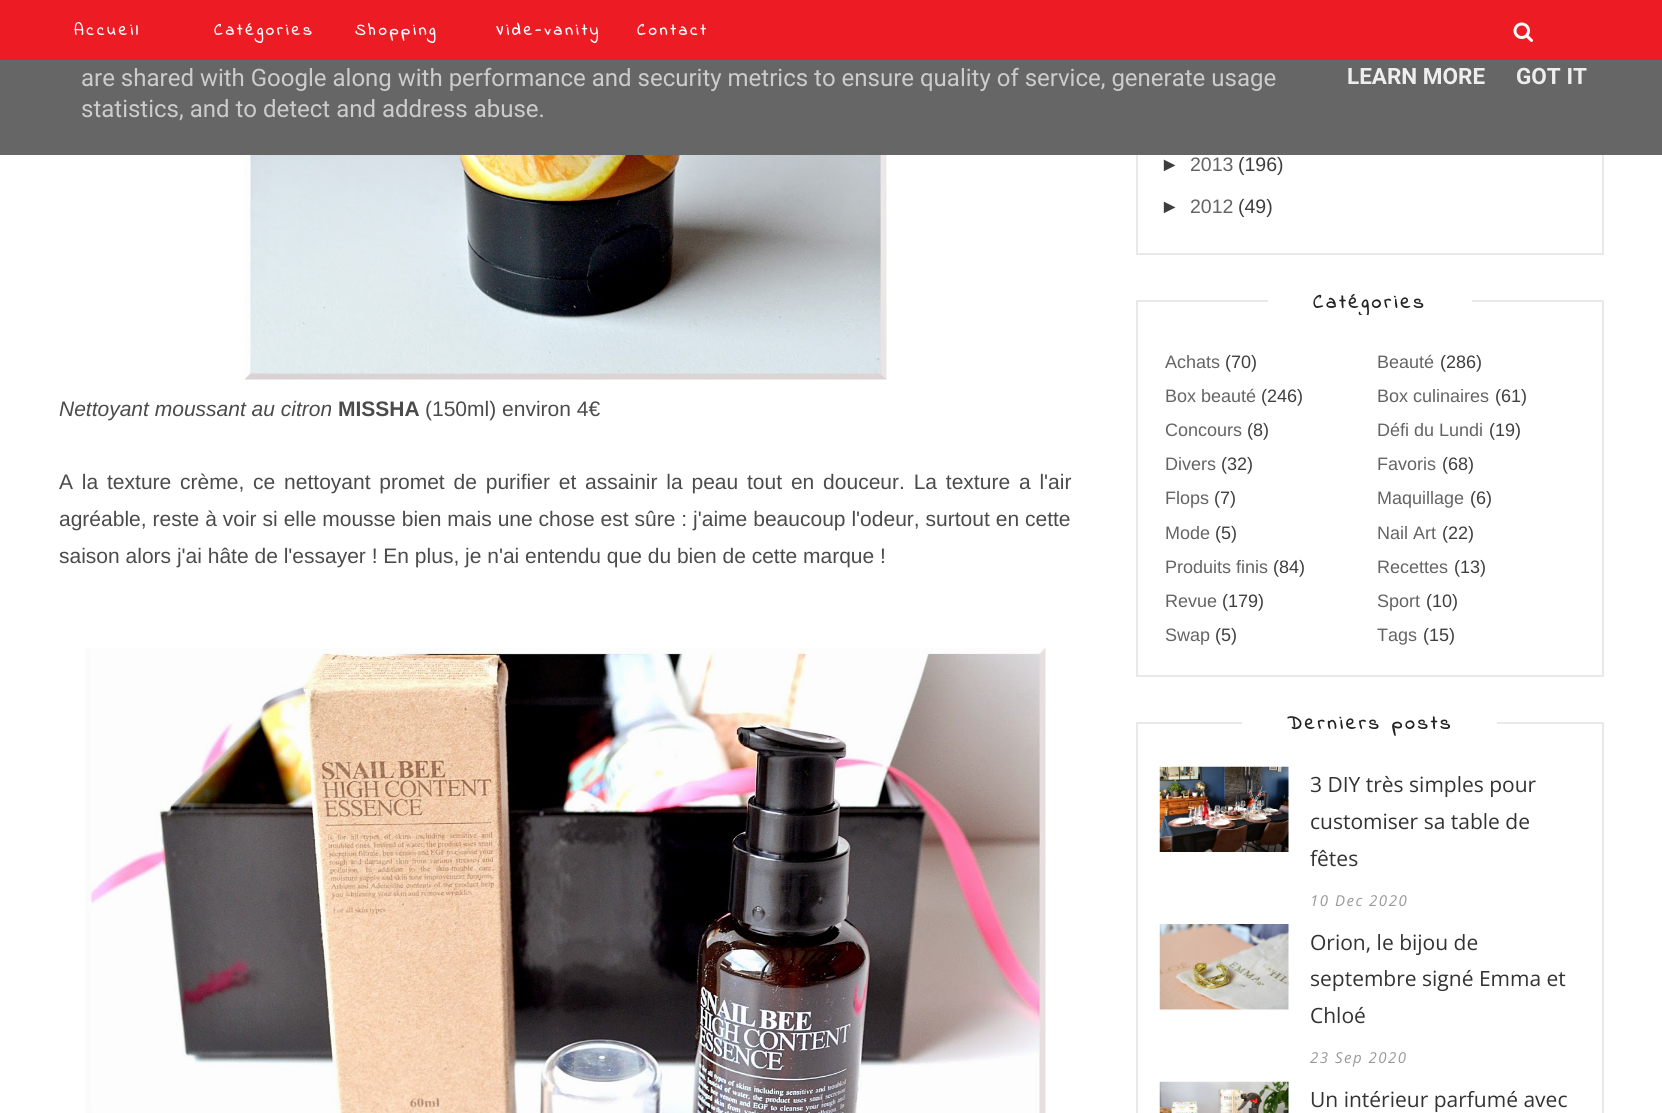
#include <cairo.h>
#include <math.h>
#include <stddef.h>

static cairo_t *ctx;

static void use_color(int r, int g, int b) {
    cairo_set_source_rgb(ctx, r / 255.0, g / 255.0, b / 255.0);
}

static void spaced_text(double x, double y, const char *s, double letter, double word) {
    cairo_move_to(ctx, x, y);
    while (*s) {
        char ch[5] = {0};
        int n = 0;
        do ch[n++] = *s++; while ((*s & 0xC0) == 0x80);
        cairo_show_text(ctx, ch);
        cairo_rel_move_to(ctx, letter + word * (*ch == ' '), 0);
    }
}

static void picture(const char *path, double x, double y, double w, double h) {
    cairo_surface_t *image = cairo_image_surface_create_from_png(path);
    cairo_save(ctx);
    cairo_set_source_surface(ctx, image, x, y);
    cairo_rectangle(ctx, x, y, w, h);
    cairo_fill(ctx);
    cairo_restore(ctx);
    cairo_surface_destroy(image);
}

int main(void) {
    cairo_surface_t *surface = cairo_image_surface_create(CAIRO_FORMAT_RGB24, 1662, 1113);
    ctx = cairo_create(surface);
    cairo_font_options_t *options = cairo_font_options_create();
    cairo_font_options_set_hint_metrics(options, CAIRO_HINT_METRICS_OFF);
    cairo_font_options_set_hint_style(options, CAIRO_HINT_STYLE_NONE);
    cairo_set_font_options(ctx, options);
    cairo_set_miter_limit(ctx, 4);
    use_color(255, 255, 255);
    cairo_paint(ctx);
    cairo_rectangle(ctx, 1137, -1, 466, 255);
    use_color(233, 233, 233);
    cairo_stroke(ctx);
    use_color(237, 28, 36);
    cairo_rectangle(ctx, 0, 0, 1662, 60);
    cairo_fill(ctx);
    cairo_select_font_face(ctx, "Indie Flower", CAIRO_FONT_SLANT_NORMAL, CAIRO_FONT_WEIGHT_BOLD);
    cairo_set_font_size(ctx, 16.5);
    use_color(255, 255, 255);
    spaced_text(74, 35, "Accueil", 3, 0);
    spaced_text(214, 35, "Catégories", 3, 0);
    spaced_text(355, 35, "Shopping", 3, 0);
    spaced_text(496, 35, "Vide-vanity", 3, 0);
    spaced_text(637, 35, "Contact", 3, 0);
    picture("img1.png", 1513, 22, 20, 20);
    use_color(102, 102, 102);
    cairo_rectangle(ctx, 0, 60, 1662, 95);
    cairo_fill(ctx);
    cairo_select_font_face(ctx, "Roboto", CAIRO_FONT_SLANT_NORMAL, CAIRO_FONT_WEIGHT_NORMAL);
    cairo_set_font_size(ctx, 24);
    use_color(204, 204, 204);
    cairo_move_to(ctx, 81, 86);
    cairo_show_text(ctx, "are shared with Google along with performance and security metrics to ensure quality of service, generate usage");
    cairo_move_to(ctx, 81, 117);
    cairo_show_text(ctx, "statistics, and to detect and address abuse.");
    cairo_select_font_face(ctx, "Roboto", CAIRO_FONT_SLANT_NORMAL, CAIRO_FONT_WEIGHT_BOLD);
    cairo_set_font_size(ctx, 22.5);
    use_color(238, 238, 238);
    cairo_move_to(ctx, 1347, 84);
    cairo_show_text(ctx, "LEARN MORE");
    cairo_move_to(ctx, 1516, 84);
    cairo_show_text(ctx, "GOT IT");
    picture("img2.png", 244, 155, 643, 225);
    cairo_select_font_face(ctx, "Liberation Sans", CAIRO_FONT_SLANT_ITALIC, CAIRO_FONT_WEIGHT_NORMAL);
    cairo_set_font_size(ctx, 21);
    use_color(75, 75, 75);
    cairo_move_to(ctx, 59, 416);
    cairo_show_text(ctx, "Nettoyant moussant au citron");
    cairo_select_font_face(ctx, "Liberation Sans", CAIRO_FONT_SLANT_NORMAL, CAIRO_FONT_WEIGHT_BOLD);
    cairo_move_to(ctx, 338, 416);
    cairo_show_text(ctx, "MISSHA");
    cairo_select_font_face(ctx, "Liberation Sans", CAIRO_FONT_SLANT_NORMAL, CAIRO_FONT_WEIGHT_NORMAL);
    cairo_move_to(ctx, 425, 416);
    cairo_show_text(ctx, "(150ml) environ 4€");
    spaced_text(59, 489, "A la texture crème, ce nettoyant promet de purifier et assainir la peau tout en douceur. La texture a l'air", 0, 3);
    spaced_text(59, 526, "agréable, reste à voir si elle mousse bien mais une chose est sûre : j'aime beaucoup l'odeur, surtout en cette", 0, 0.1);
    cairo_move_to(ctx, 59, 563);
    cairo_show_text(ctx, "saison alors j'ai hâte de l'essayer ! En plus, je n'ai entendu que du bien de cette marque !");
    picture("img3.png", 85, 648, 961, 465);
    cairo_set_font_size(ctx, 19.5);
    use_color(62, 62, 62);
    cairo_move_to(ctx, 1160, 171);
    cairo_show_text(ctx, "►");
    use_color(100, 100, 100);
    cairo_move_to(ctx, 1190, 171);
    cairo_show_text(ctx, "2013");
    use_color(62, 62, 62);
    cairo_move_to(ctx, 1238, 171);
    cairo_show_text(ctx, "(196)");
    cairo_move_to(ctx, 1160, 213);
    cairo_show_text(ctx, "►");
    use_color(100, 100, 100);
    cairo_move_to(ctx, 1190, 213);
    cairo_show_text(ctx, "2012");
    use_color(62, 62, 62);
    cairo_move_to(ctx, 1238, 213);
    cairo_show_text(ctx, "(49)");
    cairo_rectangle(ctx, 1137, 301, 466, 375);
    use_color(233, 233, 233);
    cairo_stroke(ctx);
    use_color(255, 255, 255);
    cairo_rectangle(ctx, 1268, 300, 204, 2);
    cairo_fill(ctx);
    cairo_save(ctx);
    cairo_rectangle(ctx, 1160, 264, 420, 51);
    cairo_clip(ctx);
    cairo_select_font_face(ctx, "Indie Flower", CAIRO_FONT_SLANT_NORMAL, CAIRO_FONT_WEIGHT_BOLD);
    use_color(34, 34, 34);
    spaced_text(1313, 308, "Catégories", 3, 0);
    cairo_restore(ctx);
    cairo_set_font_size(ctx, 18);
    use_color(100, 100, 100);
    cairo_move_to(ctx, 1165, 368);
    cairo_show_text(ctx, "Achats");
    use_color(62, 62, 62);
    cairo_move_to(ctx, 1225, 368);
    cairo_show_text(ctx, "(70)");
    use_color(100, 100, 100);
    cairo_move_to(ctx, 1377, 368);
    cairo_show_text(ctx, "Beauté");
    use_color(62, 62, 62);
    cairo_move_to(ctx, 1440, 368);
    cairo_show_text(ctx, "(286)");
    use_color(100, 100, 100);
    cairo_move_to(ctx, 1165, 402);
    cairo_show_text(ctx, "Box beauté");
    use_color(62, 62, 62);
    cairo_move_to(ctx, 1261, 402);
    cairo_show_text(ctx, "(246)");
    use_color(100, 100, 100);
    cairo_move_to(ctx, 1377, 402);
    cairo_show_text(ctx, "Box culinaires");
    use_color(62, 62, 62);
    cairo_move_to(ctx, 1495, 402);
    cairo_show_text(ctx, "(61)");
    use_color(100, 100, 100);
    cairo_move_to(ctx, 1165, 436);
    cairo_show_text(ctx, "Concours");
    use_color(62, 62, 62);
    cairo_move_to(ctx, 1247, 436);
    cairo_show_text(ctx, "(8)");
    use_color(100, 100, 100);
    cairo_move_to(ctx, 1377, 436);
    cairo_show_text(ctx, "Défi du Lundi");
    use_color(62, 62, 62);
    cairo_move_to(ctx, 1489, 436);
    cairo_show_text(ctx, "(19)");
    use_color(100, 100, 100);
    cairo_move_to(ctx, 1165, 470);
    cairo_show_text(ctx, "Divers");
    use_color(62, 62, 62);
    cairo_move_to(ctx, 1221, 470);
    cairo_show_text(ctx, "(32)");
    use_color(100, 100, 100);
    cairo_move_to(ctx, 1377, 470);
    cairo_show_text(ctx, "Favoris");
    use_color(62, 62, 62);
    cairo_move_to(ctx, 1442, 470);
    cairo_show_text(ctx, "(68)");
    use_color(100, 100, 100);
    cairo_move_to(ctx, 1165, 504);
    cairo_show_text(ctx, "Flops");
    use_color(62, 62, 62);
    cairo_move_to(ctx, 1214, 504);
    cairo_show_text(ctx, "(7)");
    use_color(100, 100, 100);
    cairo_move_to(ctx, 1377, 504);
    cairo_show_text(ctx, "Maquillage");
    use_color(62, 62, 62);
    cairo_move_to(ctx, 1470, 504);
    cairo_show_text(ctx, "(6)");
    use_color(100, 100, 100);
    cairo_move_to(ctx, 1165, 539);
    cairo_show_text(ctx, "Mode");
    use_color(62, 62, 62);
    cairo_move_to(ctx, 1215, 539);
    cairo_show_text(ctx, "(5)");
    use_color(100, 100, 100);
    cairo_move_to(ctx, 1377, 539);
    cairo_show_text(ctx, "Nail Art");
    use_color(62, 62, 62);
    cairo_move_to(ctx, 1442, 539);
    cairo_show_text(ctx, "(22)");
    use_color(100, 100, 100);
    cairo_move_to(ctx, 1165, 573);
    cairo_show_text(ctx, "Produits finis");
    use_color(62, 62, 62);
    cairo_move_to(ctx, 1273, 573);
    cairo_show_text(ctx, "(84)");
    use_color(100, 100, 100);
    cairo_move_to(ctx, 1377, 573);
    cairo_show_text(ctx, "Recettes");
    use_color(62, 62, 62);
    cairo_move_to(ctx, 1454, 573);
    cairo_show_text(ctx, "(13)");
    use_color(100, 100, 100);
    cairo_move_to(ctx, 1165, 607);
    cairo_show_text(ctx, "Revue");
    use_color(62, 62, 62);
    cairo_move_to(ctx, 1222, 607);
    cairo_show_text(ctx, "(179)");
    use_color(100, 100, 100);
    cairo_move_to(ctx, 1377, 607);
    cairo_show_text(ctx, "Sport");
    use_color(62, 62, 62);
    cairo_move_to(ctx, 1426, 607);
    cairo_show_text(ctx, "(10)");
    use_color(100, 100, 100);
    cairo_move_to(ctx, 1165, 641);
    cairo_show_text(ctx, "Swap");
    use_color(62, 62, 62);
    cairo_move_to(ctx, 1215, 641);
    cairo_show_text(ctx, "(5)");
    use_color(100, 100, 100);
    cairo_move_to(ctx, 1377, 641);
    cairo_show_text(ctx, "Tags");
    use_color(62, 62, 62);
    cairo_move_to(ctx, 1423, 641);
    cairo_show_text(ctx, "(15)");
    cairo_rectangle(ctx, 1137, 723, 466, 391);
    use_color(233, 233, 233);
    cairo_stroke(ctx);
    use_color(255, 255, 255);
    cairo_rectangle(ctx, 1242, 722, 255, 2);
    cairo_fill(ctx);
    cairo_select_font_face(ctx, "Indie Flower", CAIRO_FONT_SLANT_NORMAL, CAIRO_FONT_WEIGHT_BOLD);
    cairo_set_font_size(ctx, 19.5);
    use_color(34, 34, 34);
    spaced_text(1287, 729, "Derniers posts", 3, 0);
    picture("img4.png", 1159, 766, 130, 86);
    cairo_select_font_face(ctx, "Open Sans", CAIRO_FONT_SLANT_NORMAL, CAIRO_FONT_WEIGHT_NORMAL);
    cairo_set_font_size(ctx, 21);
    use_color(51, 51, 51);
    cairo_move_to(ctx, 1310, 792);
    cairo_show_text(ctx, "3 DIY très simples pour");
    cairo_move_to(ctx, 1310, 829);
    cairo_show_text(ctx, "customiser sa table de");
    cairo_move_to(ctx, 1310, 866);
    cairo_show_text(ctx, "fêtes");
    cairo_select_font_face(ctx, "Open Sans", CAIRO_FONT_SLANT_ITALIC, CAIRO_FONT_WEIGHT_NORMAL);
    cairo_set_font_size(ctx, 15);
    use_color(153, 153, 153);
    spaced_text(1310, 906, "10 Dec 2020", 1.5, 0);
    picture("img5.png", 1159, 924, 130, 86);
    cairo_select_font_face(ctx, "Open Sans", CAIRO_FONT_SLANT_NORMAL, CAIRO_FONT_WEIGHT_NORMAL);
    cairo_set_font_size(ctx, 21);
    use_color(51, 51, 51);
    cairo_move_to(ctx, 1310, 950);
    cairo_show_text(ctx, "Orion, le bijou de");
    cairo_move_to(ctx, 1310, 986);
    cairo_show_text(ctx, "septembre signé Emma et");
    cairo_move_to(ctx, 1310, 1023);
    cairo_show_text(ctx, "Chloé");
    cairo_select_font_face(ctx, "Open Sans", CAIRO_FONT_SLANT_ITALIC, CAIRO_FONT_WEIGHT_NORMAL);
    cairo_set_font_size(ctx, 15);
    use_color(153, 153, 153);
    spaced_text(1310, 1063, "23 Sep 2020", 1.5, 0);
    picture("img6.png", 1159, 1081, 130, 32);
    cairo_select_font_face(ctx, "Open Sans", CAIRO_FONT_SLANT_NORMAL, CAIRO_FONT_WEIGHT_NORMAL);
    cairo_set_font_size(ctx, 21);
    use_color(51, 51, 51);
    cairo_move_to(ctx, 1310, 1107);
    cairo_show_text(ctx, "Un intérieur parfumé avec");
    cairo_surface_write_to_png(surface, "result.png");
    cairo_font_options_destroy(options);
    cairo_destroy(ctx);
    cairo_surface_destroy(surface);
    return 0;
}
